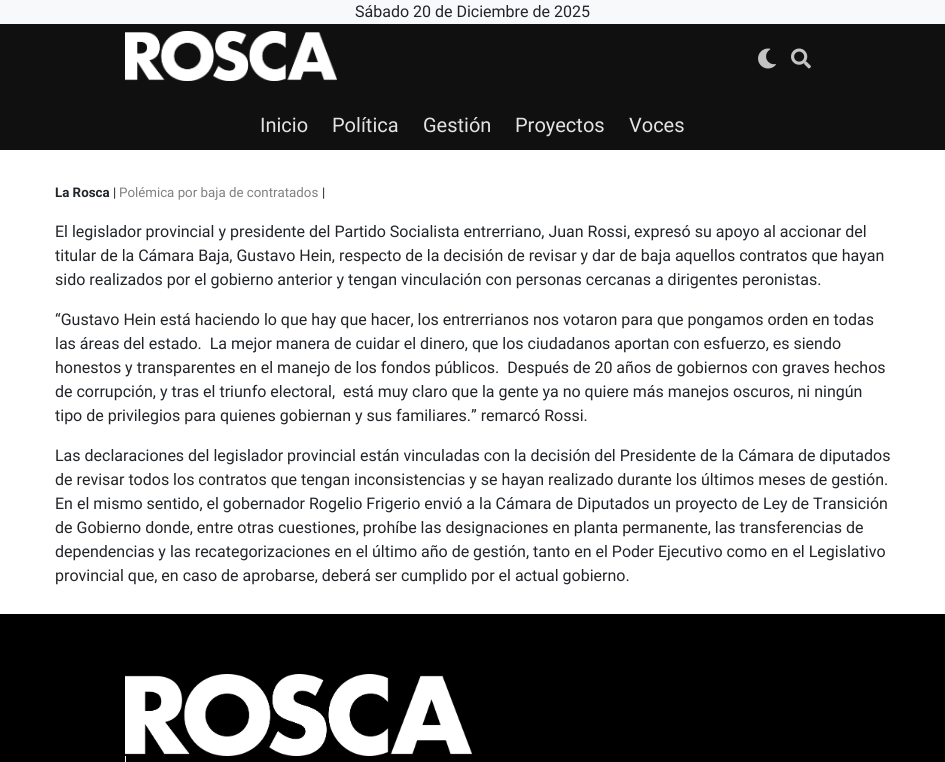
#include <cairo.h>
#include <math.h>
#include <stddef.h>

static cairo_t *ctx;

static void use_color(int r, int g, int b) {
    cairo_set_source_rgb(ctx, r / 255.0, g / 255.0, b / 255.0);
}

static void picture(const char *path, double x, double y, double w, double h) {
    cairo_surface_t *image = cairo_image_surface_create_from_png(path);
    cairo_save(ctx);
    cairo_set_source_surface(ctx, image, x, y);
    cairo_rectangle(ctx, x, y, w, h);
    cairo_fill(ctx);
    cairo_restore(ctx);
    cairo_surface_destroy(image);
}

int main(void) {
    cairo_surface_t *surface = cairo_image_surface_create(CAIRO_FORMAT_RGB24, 945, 762);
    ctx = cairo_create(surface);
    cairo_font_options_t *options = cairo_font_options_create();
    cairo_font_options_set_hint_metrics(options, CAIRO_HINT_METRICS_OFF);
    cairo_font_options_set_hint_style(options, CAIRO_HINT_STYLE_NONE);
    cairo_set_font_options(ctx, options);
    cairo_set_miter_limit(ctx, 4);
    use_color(255, 255, 255);
    cairo_paint(ctx);
    use_color(248, 249, 250);
    cairo_rectangle(ctx, 0, 0, 945, 24);
    cairo_fill(ctx);
    cairo_select_font_face(ctx, "Roboto", CAIRO_FONT_SLANT_NORMAL, CAIRO_FONT_WEIGHT_NORMAL);
    cairo_set_font_size(ctx, 16);
    use_color(33, 37, 41);
    cairo_move_to(ctx, 355, 17);
    cairo_show_text(ctx, "Sábado 20 de Diciembre de 2025");
    use_color(16, 16, 16);
    cairo_rectangle(ctx, 0, 24, 945, 126);
    cairo_fill(ctx);
    picture("img1.png", 125, 31, 212, 50);
    picture("img2.png", 758, 48, 18, 21);
    picture("img3.png", 791, 48, 20, 21);
    cairo_set_font_size(ctx, 20);
    use_color(227, 227, 227);
    cairo_move_to(ctx, 260, 132);
    cairo_show_text(ctx, "Inicio");
    cairo_move_to(ctx, 332, 132);
    cairo_show_text(ctx, "Política");
    cairo_move_to(ctx, 423, 132);
    cairo_show_text(ctx, "Gestión");
    cairo_move_to(ctx, 515, 132);
    cairo_show_text(ctx, "Proyectos");
    cairo_move_to(ctx, 629, 132);
    cairo_show_text(ctx, "Voces");
    cairo_select_font_face(ctx, "Roboto", CAIRO_FONT_SLANT_NORMAL, CAIRO_FONT_WEIGHT_BOLD);
    cairo_set_font_size(ctx, 13.3);
    use_color(33, 37, 41);
    cairo_move_to(ctx, 55, 197);
    cairo_show_text(ctx, "La Rosca");
    cairo_select_font_face(ctx, "Roboto", CAIRO_FONT_SLANT_NORMAL, CAIRO_FONT_WEIGHT_NORMAL);
    cairo_move_to(ctx, 113, 197);
    cairo_show_text(ctx, "|");
    use_color(128, 128, 128);
    cairo_move_to(ctx, 119, 197);
    cairo_show_text(ctx, "Polémica por baja de contratados");
    use_color(33, 37, 41);
    cairo_move_to(ctx, 322, 197);
    cairo_show_text(ctx, "|");
    cairo_set_font_size(ctx, 16);
    cairo_move_to(ctx, 55, 237);
    cairo_show_text(ctx, "El legislador provincial y presidente del Partido Socialista entrerriano, Juan Rossi, expresó su apoyo al accionar del");
    cairo_move_to(ctx, 55, 261);
    cairo_show_text(ctx, "titular de la Cámara Baja, Gustavo Hein, respecto de la decisión de revisar y dar de baja aquellos contratos que hayan");
    cairo_move_to(ctx, 55, 285);
    cairo_show_text(ctx, "sido realizados por el gobierno anterior y tengan vinculación con personas cercanas a dirigentes peronistas.");
    cairo_move_to(ctx, 55, 325);
    cairo_show_text(ctx, "“Gustavo Hein está haciendo lo que hay que hacer, los entrerrianos nos votaron para que pongamos orden en todas");
    cairo_move_to(ctx, 55, 349);
    cairo_show_text(ctx, "las áreas del estado.  La mejor manera de cuidar el dinero, que los ciudadanos aportan con esfuerzo, es siendo");
    cairo_move_to(ctx, 55, 373);
    cairo_show_text(ctx, "honestos y transparentes en el manejo de los fondos públicos.  Después de 20 años de gobiernos con graves hechos");
    cairo_move_to(ctx, 55, 397);
    cairo_show_text(ctx, "de corrupción, y tras el triunfo electoral,  está muy claro que la gente ya no quiere más manejos oscuros, ni ningún");
    cairo_move_to(ctx, 55, 421);
    cairo_show_text(ctx, "tipo de privilegios para quienes gobiernan y sus familiares.” remarcó Rossi.");
    cairo_move_to(ctx, 55, 461);
    cairo_show_text(ctx, "Las declaraciones del legislador provincial están vinculadas con la decisión del Presidente de la Cámara de diputados");
    cairo_move_to(ctx, 55, 485);
    cairo_show_text(ctx, "de revisar todos los contratos que tengan inconsistencias y se hayan realizado durante los últimos meses de gestión.");
    cairo_move_to(ctx, 55, 509);
    cairo_show_text(ctx, "En el mismo sentido, el gobernador Rogelio Frigerio envió a la Cámara de Diputados un proyecto de Ley de Transición");
    cairo_move_to(ctx, 55, 533);
    cairo_show_text(ctx, "de Gobierno donde, entre otras cuestiones, prohíbe las designaciones en planta permanente, las transferencias de");
    cairo_move_to(ctx, 55, 557);
    cairo_show_text(ctx, "dependencias y las recategorizaciones en el último año de gestión, tanto en el Poder Ejecutivo como en el Legislativo");
    cairo_move_to(ctx, 55, 581);
    cairo_show_text(ctx, "provincial que, en caso de aprobarse, deberá ser cumplido por el actual gobierno.");
    use_color(0, 0, 0);
    cairo_rectangle(ctx, 0, 614, 945, 148);
    cairo_fill(ctx);
    picture("img4.png", 125, 674, 347, 82);
    use_color(255, 255, 255);
    cairo_rectangle(ctx, 125, 756, 1, 6);
    cairo_fill(ctx);
    cairo_surface_write_to_png(surface, "result.png");
    cairo_font_options_destroy(options);
    cairo_destroy(ctx);
    cairo_surface_destroy(surface);
    return 0;
}
